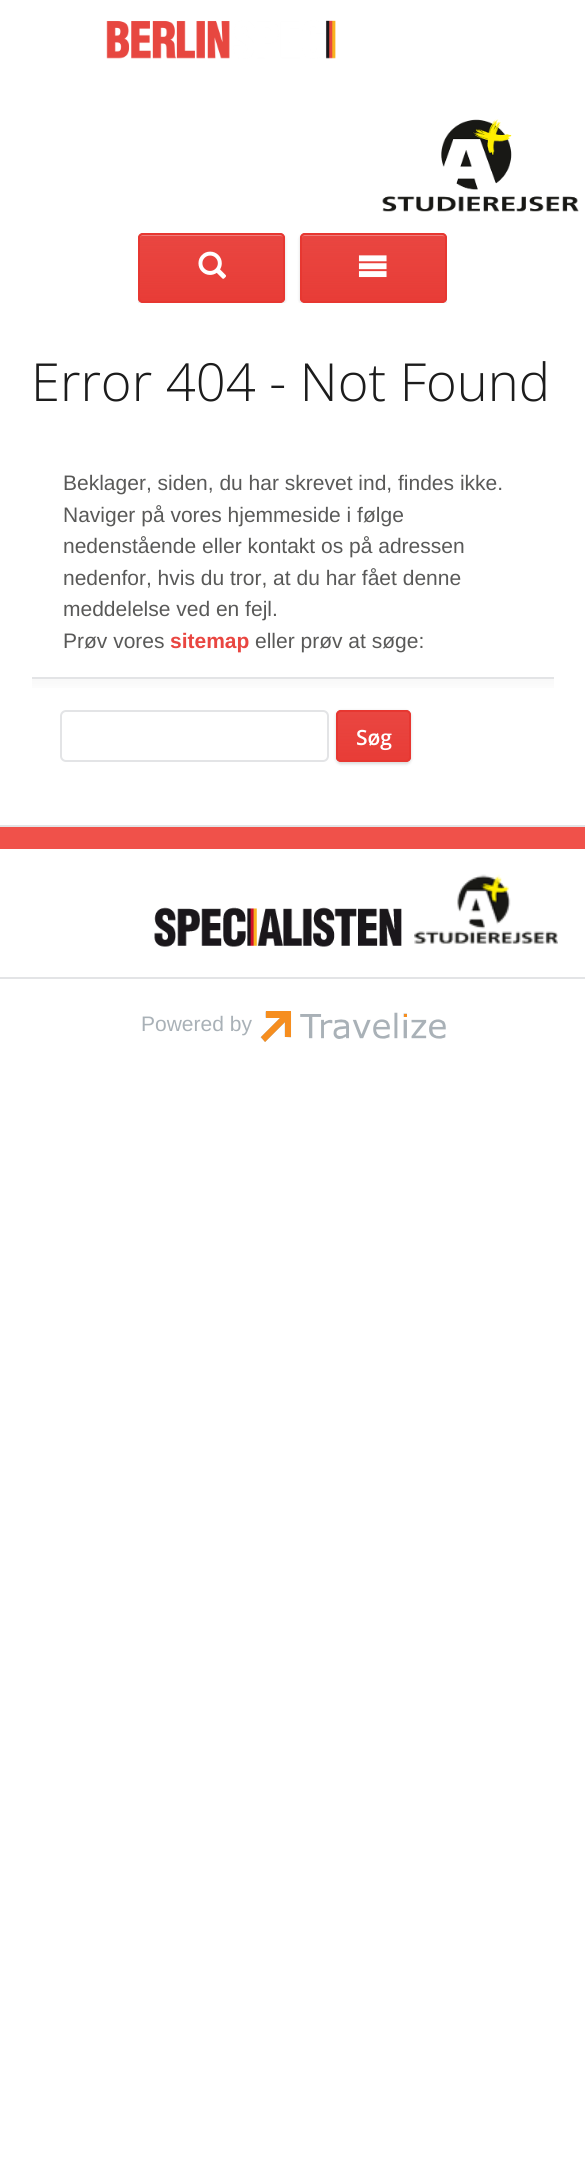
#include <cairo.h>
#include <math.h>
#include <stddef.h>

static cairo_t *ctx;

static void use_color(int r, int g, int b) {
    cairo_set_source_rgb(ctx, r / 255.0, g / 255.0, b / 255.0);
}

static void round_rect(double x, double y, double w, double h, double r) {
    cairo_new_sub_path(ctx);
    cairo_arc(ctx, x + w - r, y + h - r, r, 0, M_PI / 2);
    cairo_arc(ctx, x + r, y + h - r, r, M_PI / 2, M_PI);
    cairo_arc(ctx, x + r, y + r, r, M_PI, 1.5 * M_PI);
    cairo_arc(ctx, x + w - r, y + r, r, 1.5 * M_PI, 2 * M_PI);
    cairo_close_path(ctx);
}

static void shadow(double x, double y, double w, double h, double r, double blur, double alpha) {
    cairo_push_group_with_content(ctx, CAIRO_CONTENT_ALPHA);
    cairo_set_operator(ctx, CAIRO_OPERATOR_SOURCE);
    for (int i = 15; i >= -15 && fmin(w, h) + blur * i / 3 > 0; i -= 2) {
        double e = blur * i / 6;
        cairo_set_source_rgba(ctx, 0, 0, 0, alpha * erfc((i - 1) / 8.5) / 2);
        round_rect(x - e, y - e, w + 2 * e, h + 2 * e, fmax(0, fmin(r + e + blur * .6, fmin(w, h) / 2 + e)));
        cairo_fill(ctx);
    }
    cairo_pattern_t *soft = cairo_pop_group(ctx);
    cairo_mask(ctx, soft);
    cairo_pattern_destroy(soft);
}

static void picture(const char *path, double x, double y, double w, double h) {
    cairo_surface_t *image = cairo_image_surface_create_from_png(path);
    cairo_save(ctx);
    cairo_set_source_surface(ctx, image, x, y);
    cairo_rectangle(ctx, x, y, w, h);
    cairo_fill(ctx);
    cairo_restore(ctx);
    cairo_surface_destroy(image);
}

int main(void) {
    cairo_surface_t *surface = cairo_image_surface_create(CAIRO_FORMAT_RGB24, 585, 2169);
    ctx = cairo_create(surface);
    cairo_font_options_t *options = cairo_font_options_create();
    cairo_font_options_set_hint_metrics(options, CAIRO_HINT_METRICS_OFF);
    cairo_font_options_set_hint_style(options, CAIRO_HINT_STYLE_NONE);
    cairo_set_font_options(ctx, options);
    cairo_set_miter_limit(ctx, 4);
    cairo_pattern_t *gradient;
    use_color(255, 255, 255);
    cairo_paint(ctx);
    picture("img1.png", 106, 20, 230, 39);
    picture("img2.png", 382, 119, 197, 93);
    cairo_save(ctx);
    cairo_rectangle(ctx, 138, 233, 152, 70);
    cairo_clip(ctx);
    use_color(0, 0, 0);
    shadow(138, 234, 147, 71, 5, 1.5, 0.15);
    cairo_restore(ctx);
    use_color(233, 70, 65);
    round_rect(138, 233, 147, 70, 5);
    cairo_fill(ctx);
    cairo_save(ctx);
    round_rect(138, 233, 147, 70, 5);
    cairo_clip(ctx);
    gradient = cairo_pattern_create_linear(212, 234, 212, 302);
    cairo_pattern_add_color_stop_rgba(gradient, 0, 0.906, 0.216, 0.192, 0);
    cairo_pattern_add_color_stop_rgba(gradient, 1, 0.906, 0.216, 0.192, 0.65);
    cairo_set_source(ctx, gradient);
    cairo_pattern_destroy(gradient);
    cairo_rectangle(ctx, 138, 236, 147, 66);
    cairo_fill(ctx);
    cairo_restore(ctx);
    use_color(239, 125, 122);
    cairo_new_path(ctx);
    cairo_move_to(ctx, 142, 236);
    cairo_line_to(ctx, 280, 236);
    cairo_curve_to(ctx, 282, 236, 284, 237, 284, 238);
    cairo_line_to(ctx, 284, 237);
    cairo_curve_to(ctx, 284, 235, 283, 234, 281, 234);
    cairo_line_to(ctx, 143, 234);
    cairo_curve_to(ctx, 141, 234, 140, 235, 140, 237);
    cairo_line_to(ctx, 140, 238);
    cairo_curve_to(ctx, 140, 237, 141, 236, 142, 236);
    cairo_close_path(ctx);
    cairo_fill(ctx);
    round_rect(139, 234, 145, 68, 4);
    use_color(231, 55, 49);
    cairo_stroke(ctx);
    picture("img3.png", 198, 251, 28, 28);
    cairo_save(ctx);
    cairo_rectangle(ctx, 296, 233, 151, 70);
    cairo_clip(ctx);
    use_color(0, 0, 0);
    shadow(300, 234, 147, 71, 5, 1.5, 0.15);
    cairo_restore(ctx);
    use_color(233, 70, 65);
    round_rect(300, 233, 147, 70, 5);
    cairo_fill(ctx);
    cairo_save(ctx);
    round_rect(300, 233, 147, 70, 5);
    cairo_clip(ctx);
    gradient = cairo_pattern_create_linear(374, 234, 374, 302);
    cairo_pattern_add_color_stop_rgba(gradient, 0, 0.906, 0.216, 0.192, 0);
    cairo_pattern_add_color_stop_rgba(gradient, 1, 0.906, 0.216, 0.192, 0.65);
    cairo_set_source(ctx, gradient);
    cairo_pattern_destroy(gradient);
    cairo_rectangle(ctx, 300, 236, 147, 66);
    cairo_fill(ctx);
    cairo_restore(ctx);
    use_color(239, 125, 122);
    cairo_new_path(ctx);
    cairo_move_to(ctx, 304, 236);
    cairo_line_to(ctx, 442, 236);
    cairo_curve_to(ctx, 444, 236, 446, 237, 446, 238);
    cairo_line_to(ctx, 446, 237);
    cairo_curve_to(ctx, 446, 235, 445, 234, 443, 234);
    cairo_line_to(ctx, 305, 234);
    cairo_curve_to(ctx, 303, 234, 302, 235, 302, 237);
    cairo_line_to(ctx, 302, 238);
    cairo_curve_to(ctx, 302, 237, 303, 236, 304, 236);
    cairo_close_path(ctx);
    cairo_fill(ctx);
    round_rect(301, 234, 145, 68, 4);
    use_color(231, 55, 49);
    cairo_stroke(ctx);
    picture("img4.png", 358, 255, 29, 23);
    cairo_select_font_face(ctx, "Open Sans Light", CAIRO_FONT_SLANT_NORMAL, CAIRO_FONT_WEIGHT_NORMAL);
    cairo_set_font_size(ctx, 52.5);
    use_color(28, 28, 28);
    cairo_move_to(ctx, 31, 401);
    cairo_show_text(ctx, "Error 404 - Not Found");
    cairo_select_font_face(ctx, "Liberation Sans", CAIRO_FONT_SLANT_NORMAL, CAIRO_FONT_WEIGHT_NORMAL);
    cairo_set_font_size(ctx, 21);
    use_color(89, 89, 88);
    cairo_move_to(ctx, 63, 490);
    cairo_show_text(ctx, "Beklager, siden, du har skrevet ind, findes ikke.");
    cairo_move_to(ctx, 63, 522);
    cairo_show_text(ctx, "Naviger på vores hjemmeside i følge");
    cairo_move_to(ctx, 63, 553);
    cairo_show_text(ctx, "nedenstående eller kontakt os på adressen");
    cairo_move_to(ctx, 63, 585);
    cairo_show_text(ctx, "nedenfor, hvis du tror, at du har fået denne");
    cairo_move_to(ctx, 63, 616);
    cairo_show_text(ctx, "meddelelse ved en fejl.");
    cairo_move_to(ctx, 63, 648);
    cairo_show_text(ctx, "Prøv vores");
    cairo_select_font_face(ctx, "Liberation Sans", CAIRO_FONT_SLANT_NORMAL, CAIRO_FONT_WEIGHT_BOLD);
    use_color(233, 70, 65);
    cairo_move_to(ctx, 170, 648);
    cairo_show_text(ctx, "sitemap");
    cairo_select_font_face(ctx, "Liberation Sans", CAIRO_FONT_SLANT_NORMAL, CAIRO_FONT_WEIGHT_NORMAL);
    use_color(89, 89, 88);
    cairo_move_to(ctx, 255, 648);
    cairo_show_text(ctx, "eller prøv at søge:");
    gradient = cairo_pattern_create_linear(293, 678, 293, 794);
    cairo_pattern_add_color_stop_rgba(gradient, 0, 0.973, 0.973, 0.973, 1);
    cairo_pattern_add_color_stop_rgba(gradient, 0.14, 1, 1, 1, 1);
    cairo_set_source(ctx, gradient);
    cairo_pattern_destroy(gradient);
    cairo_rectangle(ctx, 32, 679, 522, 9);
    cairo_fill(ctx);
    use_color(227, 228, 230);
    cairo_rectangle(ctx, 32, 677, 522, 2);
    cairo_fill(ctx);
    round_rect(61, 711, 267, 50, 5);
    cairo_stroke(ctx);
    use_color(0, 0, 0);
    shadow(336, 711, 75, 53, 5, 1.5, 0.15);
    use_color(233, 70, 65);
    round_rect(336, 710, 75, 52, 5);
    cairo_fill(ctx);
    cairo_save(ctx);
    round_rect(336, 710, 75, 52, 5);
    cairo_clip(ctx);
    gradient = cairo_pattern_create_linear(374, 711, 374, 761);
    cairo_pattern_add_color_stop_rgba(gradient, 0, 0.906, 0.216, 0.192, 0);
    cairo_pattern_add_color_stop_rgba(gradient, 1, 0.906, 0.216, 0.192, 0.65);
    cairo_set_source(ctx, gradient);
    cairo_pattern_destroy(gradient);
    cairo_rectangle(ctx, 336, 713, 75, 48);
    cairo_fill(ctx);
    cairo_restore(ctx);
    round_rect(337, 711, 73, 50, 4);
    use_color(231, 55, 49);
    cairo_stroke(ctx);
    cairo_select_font_face(ctx, "Open Sans SemiBold", CAIRO_FONT_SLANT_NORMAL, CAIRO_FONT_WEIGHT_NORMAL);
    use_color(255, 255, 255);
    cairo_move_to(ctx, 356, 745);
    cairo_show_text(ctx, "Søg");
    use_color(240, 81, 74);
    cairo_rectangle(ctx, 0, 827, 585, 22);
    cairo_fill(ctx);
    use_color(227, 228, 230);
    cairo_rectangle(ctx, 0, 825, 585, 2);
    cairo_fill(ctx);
    picture("img5.png", 154, 907, 248, 40);
    picture("img6.png", 414, 874, 144, 70);
    cairo_rectangle(ctx, 0, 977, 585, 2);
    cairo_fill(ctx);
    cairo_select_font_face(ctx, "Liberation Sans", CAIRO_FONT_SLANT_NORMAL, CAIRO_FONT_WEIGHT_NORMAL);
    use_color(169, 177, 183);
    cairo_move_to(ctx, 141, 1031);
    cairo_show_text(ctx, "Powered by");
    picture("img7.png", 260, 1011, 186, 31);
    use_color(246, 142, 31);
    cairo_new_path(ctx);
    cairo_move_to(ctx, 261, 1037);
    cairo_line_to(ctx, 280, 1018);
    cairo_line_to(ctx, 266, 1018);
    cairo_line_to(ctx, 266, 1011);
    cairo_line_to(ctx, 291, 1011);
    cairo_line_to(ctx, 291, 1037);
    cairo_line_to(ctx, 285, 1037);
    cairo_line_to(ctx, 285, 1022);
    cairo_line_to(ctx, 265, 1042);
    cairo_close_path(ctx);
    cairo_move_to(ctx, 404, 1014);
    cairo_line_to(ctx, 407, 1014);
    cairo_line_to(ctx, 407, 1017);
    cairo_line_to(ctx, 404, 1017);
    cairo_close_path(ctx);
    cairo_fill(ctx);
    cairo_surface_write_to_png(surface, "result.png");
    cairo_font_options_destroy(options);
    cairo_destroy(ctx);
    cairo_surface_destroy(surface);
    return 0;
}
